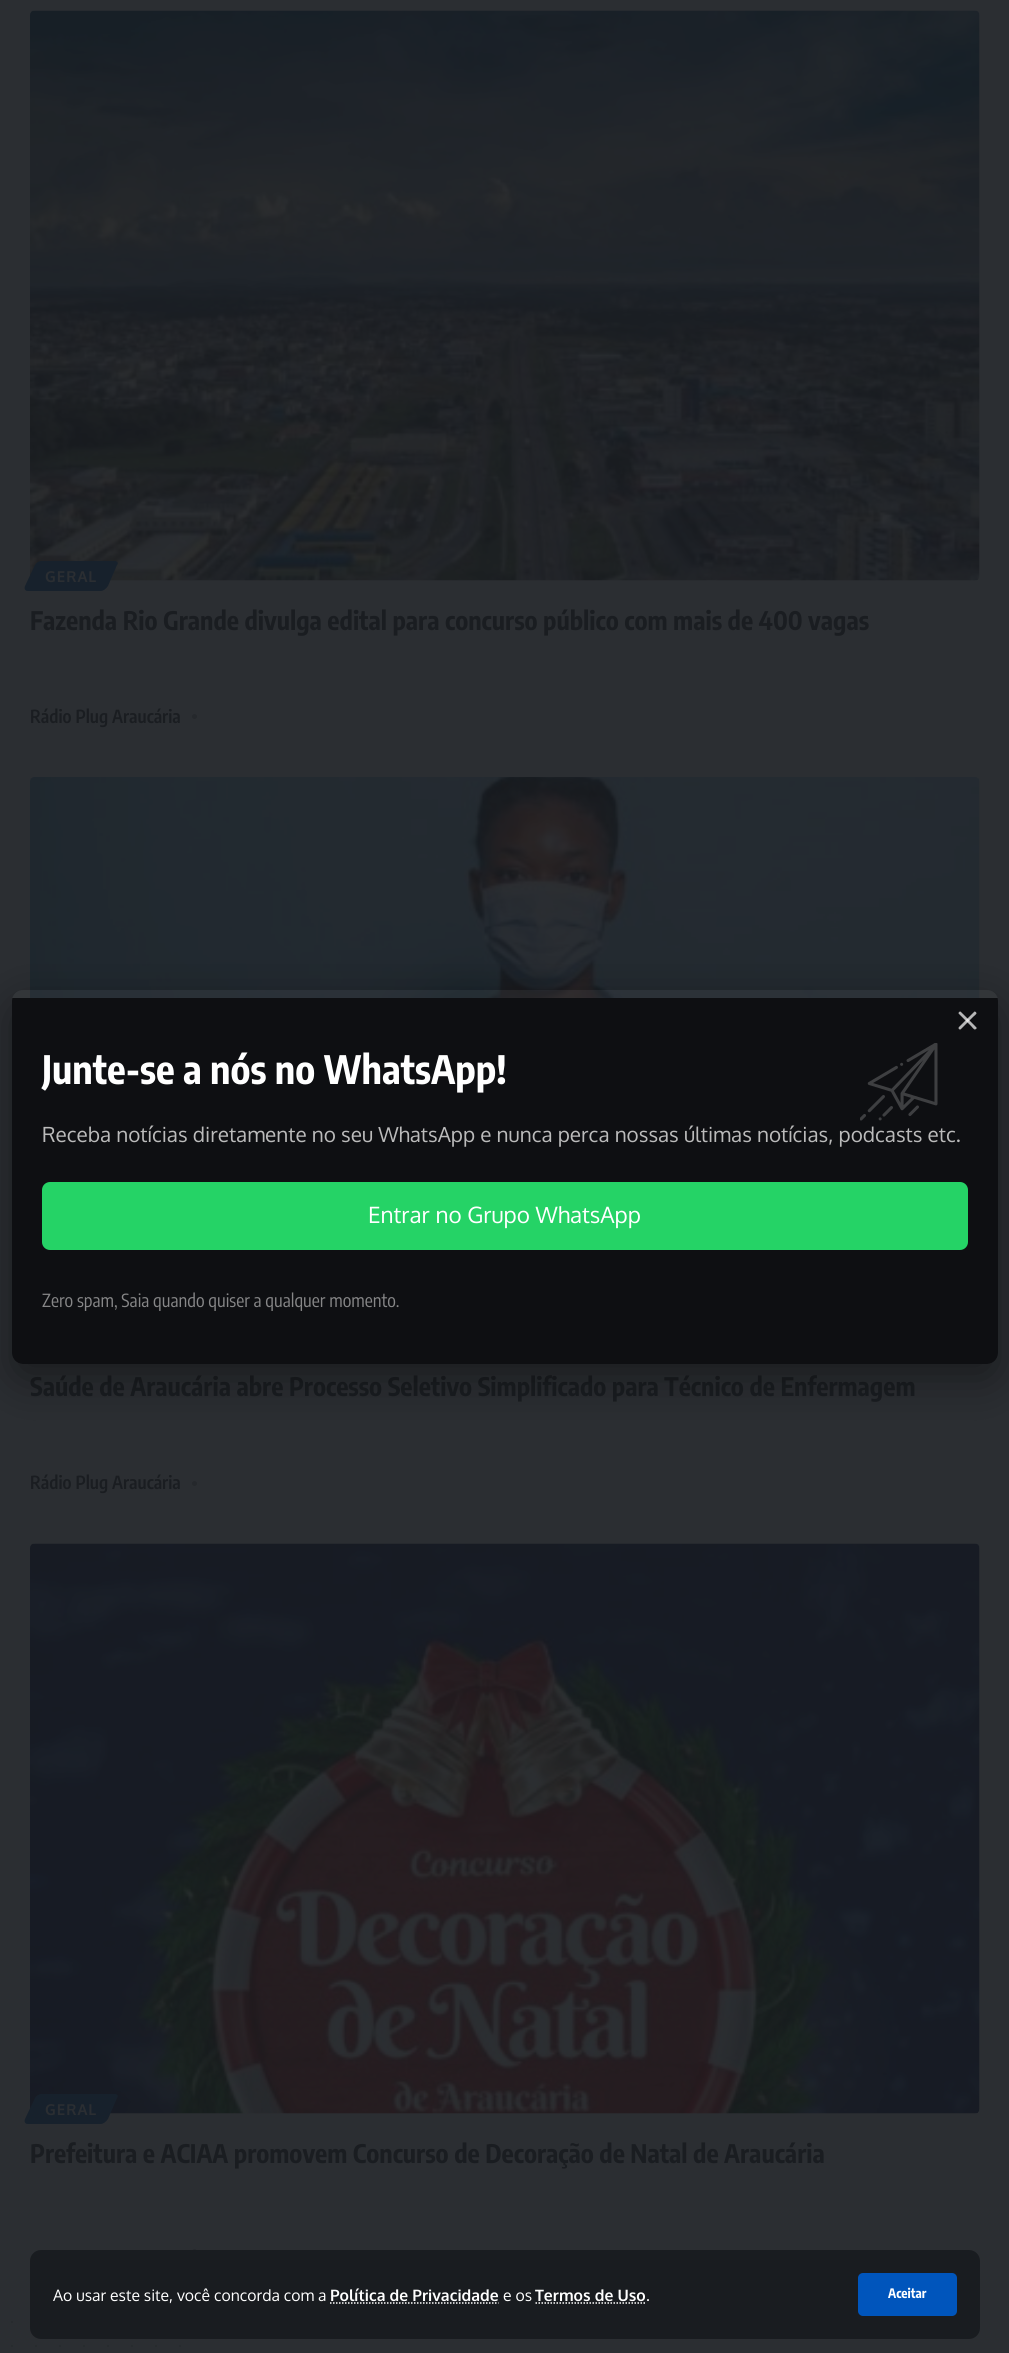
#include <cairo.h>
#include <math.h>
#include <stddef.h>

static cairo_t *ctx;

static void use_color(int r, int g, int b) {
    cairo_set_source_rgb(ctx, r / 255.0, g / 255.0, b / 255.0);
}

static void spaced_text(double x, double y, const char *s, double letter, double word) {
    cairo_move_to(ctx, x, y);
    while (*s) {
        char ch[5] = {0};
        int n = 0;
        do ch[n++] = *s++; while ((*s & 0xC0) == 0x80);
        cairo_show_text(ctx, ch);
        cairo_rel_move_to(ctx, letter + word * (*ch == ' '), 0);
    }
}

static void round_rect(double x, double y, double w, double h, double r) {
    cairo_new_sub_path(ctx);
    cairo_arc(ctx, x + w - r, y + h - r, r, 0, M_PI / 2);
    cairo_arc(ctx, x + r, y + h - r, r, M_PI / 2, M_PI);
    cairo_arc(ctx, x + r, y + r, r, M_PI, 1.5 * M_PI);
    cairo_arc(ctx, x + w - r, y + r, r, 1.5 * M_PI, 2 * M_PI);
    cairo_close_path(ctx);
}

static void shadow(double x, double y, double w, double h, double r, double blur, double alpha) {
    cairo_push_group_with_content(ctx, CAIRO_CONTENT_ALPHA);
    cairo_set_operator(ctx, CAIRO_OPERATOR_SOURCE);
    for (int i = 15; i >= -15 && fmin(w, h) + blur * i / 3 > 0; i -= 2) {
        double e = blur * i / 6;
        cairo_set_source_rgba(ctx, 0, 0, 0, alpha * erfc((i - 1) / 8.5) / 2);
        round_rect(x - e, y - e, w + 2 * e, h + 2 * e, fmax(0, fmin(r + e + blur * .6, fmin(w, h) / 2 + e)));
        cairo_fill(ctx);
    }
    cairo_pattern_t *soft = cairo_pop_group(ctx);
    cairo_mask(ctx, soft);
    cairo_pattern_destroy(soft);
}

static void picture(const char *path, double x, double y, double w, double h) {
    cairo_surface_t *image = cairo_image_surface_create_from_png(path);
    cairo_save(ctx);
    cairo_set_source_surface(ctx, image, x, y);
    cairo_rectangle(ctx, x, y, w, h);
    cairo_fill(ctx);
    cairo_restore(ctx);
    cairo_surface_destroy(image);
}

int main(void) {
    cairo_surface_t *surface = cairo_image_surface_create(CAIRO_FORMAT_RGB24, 1009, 2353);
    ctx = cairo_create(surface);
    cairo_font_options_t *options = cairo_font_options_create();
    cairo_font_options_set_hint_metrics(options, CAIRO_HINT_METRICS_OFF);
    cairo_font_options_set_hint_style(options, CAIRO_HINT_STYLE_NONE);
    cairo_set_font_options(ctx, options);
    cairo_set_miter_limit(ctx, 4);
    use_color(43, 46, 50);
    cairo_paint(ctx);
    picture("img1.png", 30, 10, 950, 571);
    use_color(23, 33, 44);
    cairo_new_path(ctx);
    cairo_move_to(ctx, 41, 561);
    cairo_line_to(ctx, 115, 561);
    cairo_curve_to(ctx, 117, 561, 119, 563, 117, 565);
    cairo_line_to(ctx, 108, 586);
    cairo_curve_to(ctx, 106, 589, 103, 591, 101, 591);
    cairo_line_to(ctx, 28, 591);
    cairo_curve_to(ctx, 25, 591, 24, 589, 25, 586);
    cairo_line_to(ctx, 35, 565);
    cairo_curve_to(ctx, 36, 563, 39, 561, 41, 561);
    cairo_close_path(ctx);
    cairo_fill(ctx);
    cairo_select_font_face(ctx, "Oxygen", CAIRO_FONT_SLANT_NORMAL, CAIRO_FONT_WEIGHT_BOLD);
    cairo_set_font_size(ctx, 15);
    use_color(43, 46, 50);
    spaced_text(45, 582, "GERAL", 1, 0);
    cairo_select_font_face(ctx, "Encode Sans Condensed", CAIRO_FONT_SLANT_NORMAL, CAIRO_FONT_WEIGHT_BOLD);
    cairo_set_font_size(ctx, 25.5);
    use_color(26, 29, 33);
    cairo_move_to(ctx, 30, 630);
    cairo_show_text(ctx, "Fazenda Rio Grande divulga edital para concurso público com mais de 400 vagas");
    cairo_select_font_face(ctx, "Encode Sans Condensed SemiBold", CAIRO_FONT_SLANT_NORMAL, CAIRO_FONT_WEIGHT_NORMAL);
    cairo_set_font_size(ctx, 18);
    cairo_move_to(ctx, 30, 723);
    cairo_show_text(ctx, "Rádio Plug Araucária");
    use_color(37, 40, 44);
    cairo_new_path(ctx);
    cairo_arc(ctx, 194.5, 716.5, 2.5, 0, 2 * M_PI);
    cairo_fill(ctx);
    picture("img2.png", 30, 777, 950, 221);
    cairo_select_font_face(ctx, "Encode Sans Condensed", CAIRO_FONT_SLANT_NORMAL, CAIRO_FONT_WEIGHT_BOLD);
    cairo_set_font_size(ctx, 25.5);
    use_color(26, 29, 33);
    cairo_move_to(ctx, 30, 1396);
    cairo_show_text(ctx, "Saúde de Araucária abre Processo Seletivo Simplificado para Técnico de Enfermagem");
    cairo_select_font_face(ctx, "Encode Sans Condensed SemiBold", CAIRO_FONT_SLANT_NORMAL, CAIRO_FONT_WEIGHT_NORMAL);
    cairo_set_font_size(ctx, 18);
    cairo_move_to(ctx, 30, 1489);
    cairo_show_text(ctx, "Rádio Plug Araucária");
    use_color(37, 40, 44);
    cairo_new_path(ctx);
    cairo_arc(ctx, 194.5, 1483.5, 2.5, 0, 2 * M_PI);
    cairo_fill(ctx);
    picture("img3.png", 30, 1543, 950, 571);
    use_color(23, 33, 44);
    cairo_new_path(ctx);
    cairo_move_to(ctx, 41, 2094);
    cairo_line_to(ctx, 115, 2094);
    cairo_curve_to(ctx, 117, 2094, 119, 2096, 117, 2098);
    cairo_line_to(ctx, 108, 2119);
    cairo_curve_to(ctx, 106, 2122, 103, 2124, 101, 2124);
    cairo_line_to(ctx, 28, 2124);
    cairo_curve_to(ctx, 25, 2124, 24, 2122, 25, 2119);
    cairo_line_to(ctx, 35, 2098);
    cairo_curve_to(ctx, 36, 2096, 39, 2094, 41, 2094);
    cairo_close_path(ctx);
    cairo_fill(ctx);
    cairo_select_font_face(ctx, "Oxygen", CAIRO_FONT_SLANT_NORMAL, CAIRO_FONT_WEIGHT_BOLD);
    cairo_set_font_size(ctx, 15);
    use_color(43, 46, 50);
    spaced_text(45, 2115, "GERAL", 1, 0);
    cairo_select_font_face(ctx, "Encode Sans Condensed", CAIRO_FONT_SLANT_NORMAL, CAIRO_FONT_WEIGHT_BOLD);
    cairo_set_font_size(ctx, 25.5);
    use_color(26, 29, 33);
    cairo_move_to(ctx, 30, 2163);
    cairo_show_text(ctx, "Prefeitura e ACIAA promovem Concurso de Decoração de Natal de Araucária");
    use_color(37, 40, 44);
    cairo_new_path(ctx);
    cairo_arc(ctx, 194.5, 2251.5, 2.5, 0, 2 * M_PI);
    cairo_fill(ctx);
    cairo_new_path(ctx);
    cairo_move_to(ctx, 12, 2322);
    cairo_line_to(ctx, 180.3, 2322);
    use_color(39, 42, 46);
    cairo_set_line_width(ctx, 2.2);
    cairo_set_line_cap(ctx, CAIRO_LINE_CAP_ROUND);
    cairo_set_dash(ctx, (double[]){0, 24}, 2, 0);
    cairo_stroke(ctx);
    use_color(25, 28, 32);
    round_rect(30, 2250, 950, 89, 11);
    cairo_fill(ctx);
    cairo_select_font_face(ctx, "Oxygen", CAIRO_FONT_SLANT_NORMAL, CAIRO_FONT_WEIGHT_NORMAL);
    cairo_set_font_size(ctx, 15.75);
    use_color(255, 255, 255);
    cairo_move_to(ctx, 53, 2301);
    cairo_show_text(ctx, "Ao usar este site, você concorda com a");
    cairo_select_font_face(ctx, "Oxygen", CAIRO_FONT_SLANT_NORMAL, CAIRO_FONT_WEIGHT_BOLD);
    cairo_move_to(ctx, 330, 2301);
    cairo_show_text(ctx, "Política de Privacidade");
    cairo_new_path(ctx);
    cairo_move_to(ctx, 330, 2303);
    cairo_line_to(ctx, 498.5, 2303);
    cairo_set_line_width(ctx, 1.5);
    cairo_set_line_cap(ctx, CAIRO_LINE_CAP_BUTT);
    cairo_set_dash(ctx, (double[]){1.5, 1.5}, 2, 0);
    cairo_stroke(ctx);
    cairo_select_font_face(ctx, "Oxygen", CAIRO_FONT_SLANT_NORMAL, CAIRO_FONT_WEIGHT_NORMAL);
    cairo_move_to(ctx, 503, 2301);
    cairo_show_text(ctx, "e os");
    cairo_select_font_face(ctx, "Oxygen", CAIRO_FONT_SLANT_NORMAL, CAIRO_FONT_WEIGHT_BOLD);
    cairo_move_to(ctx, 535, 2301);
    cairo_show_text(ctx, "Termos de Uso");
    cairo_new_path(ctx);
    cairo_move_to(ctx, 535.5, 2303);
    cairo_line_to(ctx, 646, 2303);
    cairo_stroke(ctx);
    cairo_select_font_face(ctx, "Oxygen", CAIRO_FONT_SLANT_NORMAL, CAIRO_FONT_WEIGHT_NORMAL);
    cairo_move_to(ctx, 646, 2301);
    cairo_show_text(ctx, ".");
    use_color(0, 85, 188);
    round_rect(858, 2273, 99, 43, 5);
    cairo_fill(ctx);
    cairo_select_font_face(ctx, "Encode Sans Condensed", CAIRO_FONT_SLANT_NORMAL, CAIRO_FONT_WEIGHT_BOLD);
    cairo_set_font_size(ctx, 13);
    use_color(255, 255, 255);
    cairo_move_to(ctx, 888, 2298);
    cairo_show_text(ctx, "Aceitar");
    cairo_new_path(ctx);
    cairo_move_to(ctx, 12, 2346);
    cairo_line_to(ctx, 180.3, 2346);
    use_color(39, 42, 46);
    cairo_set_line_width(ctx, 2.2);
    cairo_set_line_cap(ctx, CAIRO_LINE_CAP_ROUND);
    cairo_set_dash(ctx, (double[]){0, 24}, 2, 0);
    cairo_stroke(ctx);
    cairo_save(ctx);
    cairo_set_fill_rule(ctx, CAIRO_FILL_RULE_EVEN_ODD);
    cairo_new_path(ctx);
    cairo_move_to(ctx, 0, 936);
    cairo_line_to(ctx, 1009, 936);
    cairo_line_to(ctx, 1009, 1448);
    cairo_line_to(ctx, 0, 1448);
    cairo_close_path(ctx);
    cairo_move_to(ctx, 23, 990);
    cairo_line_to(ctx, 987, 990);
    cairo_curve_to(ctx, 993, 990, 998, 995, 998, 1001);
    cairo_line_to(ctx, 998, 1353);
    cairo_curve_to(ctx, 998, 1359, 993, 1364, 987, 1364);
    cairo_line_to(ctx, 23, 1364);
    cairo_curve_to(ctx, 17, 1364, 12, 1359, 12, 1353);
    cairo_line_to(ctx, 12, 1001);
    cairo_curve_to(ctx, 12, 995, 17, 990, 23, 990);
    cairo_close_path(ctx);
    cairo_clip(ctx);
    use_color(0, 0, 0);
    shadow(12, 1005, 986, 374, 11, 22.5, 0.4);
    cairo_restore(ctx);
    cairo_save(ctx);
    round_rect(12, 990, 986, 374, 11);
    cairo_clip(ctx);
    use_color(14, 15, 18);
    cairo_new_path(ctx);
    cairo_move_to(ctx, 12, 998);
    cairo_line_to(ctx, 998, 998);
    cairo_line_to(ctx, 998, 1353);
    cairo_curve_to(ctx, 998, 1359, 993, 1364, 987, 1364);
    cairo_line_to(ctx, 23, 1364);
    cairo_curve_to(ctx, 17, 1364, 12, 1359, 12, 1353);
    cairo_close_path(ctx);
    cairo_fill(ctx);
    cairo_restore(ctx);
    use_color(183, 183, 184);
    cairo_new_path(ctx);
    cairo_move_to(ctx, 961, 1012);
    cairo_line_to(ctx, 976.5, 1027.5);
    cairo_curve_to(ctx, 977, 1028.5, 976, 1029.5, 974.5, 1029.5);
    cairo_curve_to(ctx, 973.5, 1029, 971.5, 1026.5, 971.5, 1026.5);
    cairo_line_to(ctx, 959, 1014);
    cairo_curve_to(ctx, 957.5, 1013, 960, 1010.5, 961, 1012);
    cairo_close_path(ctx);
    cairo_fill(ctx);
    cairo_set_source_rgba(ctx, 1, 1, 1, 0.7);
    cairo_new_path(ctx);
    cairo_move_to(ctx, 959, 1027);
    cairo_line_to(ctx, 974.5, 1011.5);
    cairo_curve_to(ctx, 975.5, 1011.5, 976.5, 1012.5, 976.5, 1013.5);
    cairo_curve_to(ctx, 976, 1014.5, 973.5, 1016.5, 973.5, 1016.5);
    cairo_line_to(ctx, 961, 1029);
    cairo_curve_to(ctx, 960, 1030.5, 957.5, 1028.5, 959, 1027);
    cairo_close_path(ctx);
    cairo_fill(ctx);
    cairo_save(ctx);
    round_rect(12, 990, 986, 374, 11);
    cairo_clip(ctx);
    cairo_set_source_rgba(ctx, 0.533, 0.533, 0.533, 0.09);
    cairo_rectangle(ctx, 12, 990, 986, 8);
    cairo_fill(ctx);
    cairo_restore(ctx);
    cairo_set_font_size(ctx, 39);
    use_color(255, 255, 255);
    cairo_move_to(ctx, 42, 1084);
    cairo_show_text(ctx, "Junte-se a nós no WhatsApp!");
    picture("img4.png", 860, 1043, 78, 78);
    cairo_select_font_face(ctx, "Oxygen", CAIRO_FONT_SLANT_NORMAL, CAIRO_FONT_WEIGHT_NORMAL);
    cairo_set_font_size(ctx, 20.7);
    use_color(187, 187, 187);
    cairo_move_to(ctx, 42, 1142);
    cairo_show_text(ctx, "Receba notícias diretamente no seu WhatsApp e nunca perca nossas últimas notícias, podcasts etc.");
    use_color(37, 211, 102);
    round_rect(42, 1182, 926, 68, 8);
    cairo_fill(ctx);
    cairo_set_font_size(ctx, 22.5);
    use_color(255, 255, 255);
    cairo_move_to(ctx, 368, 1223);
    cairo_show_text(ctx, "Entrar no Grupo WhatsApp");
    cairo_select_font_face(ctx, "Encode Sans Condensed", CAIRO_FONT_SLANT_NORMAL, CAIRO_FONT_WEIGHT_NORMAL);
    cairo_set_font_size(ctx, 18);
    use_color(135, 135, 136);
    cairo_move_to(ctx, 42, 1307);
    cairo_show_text(ctx, "Zero spam, Saia quando quiser a qualquer momento.");
    cairo_surface_write_to_png(surface, "result.png");
    cairo_font_options_destroy(options);
    cairo_destroy(ctx);
    cairo_surface_destroy(surface);
    return 0;
}
